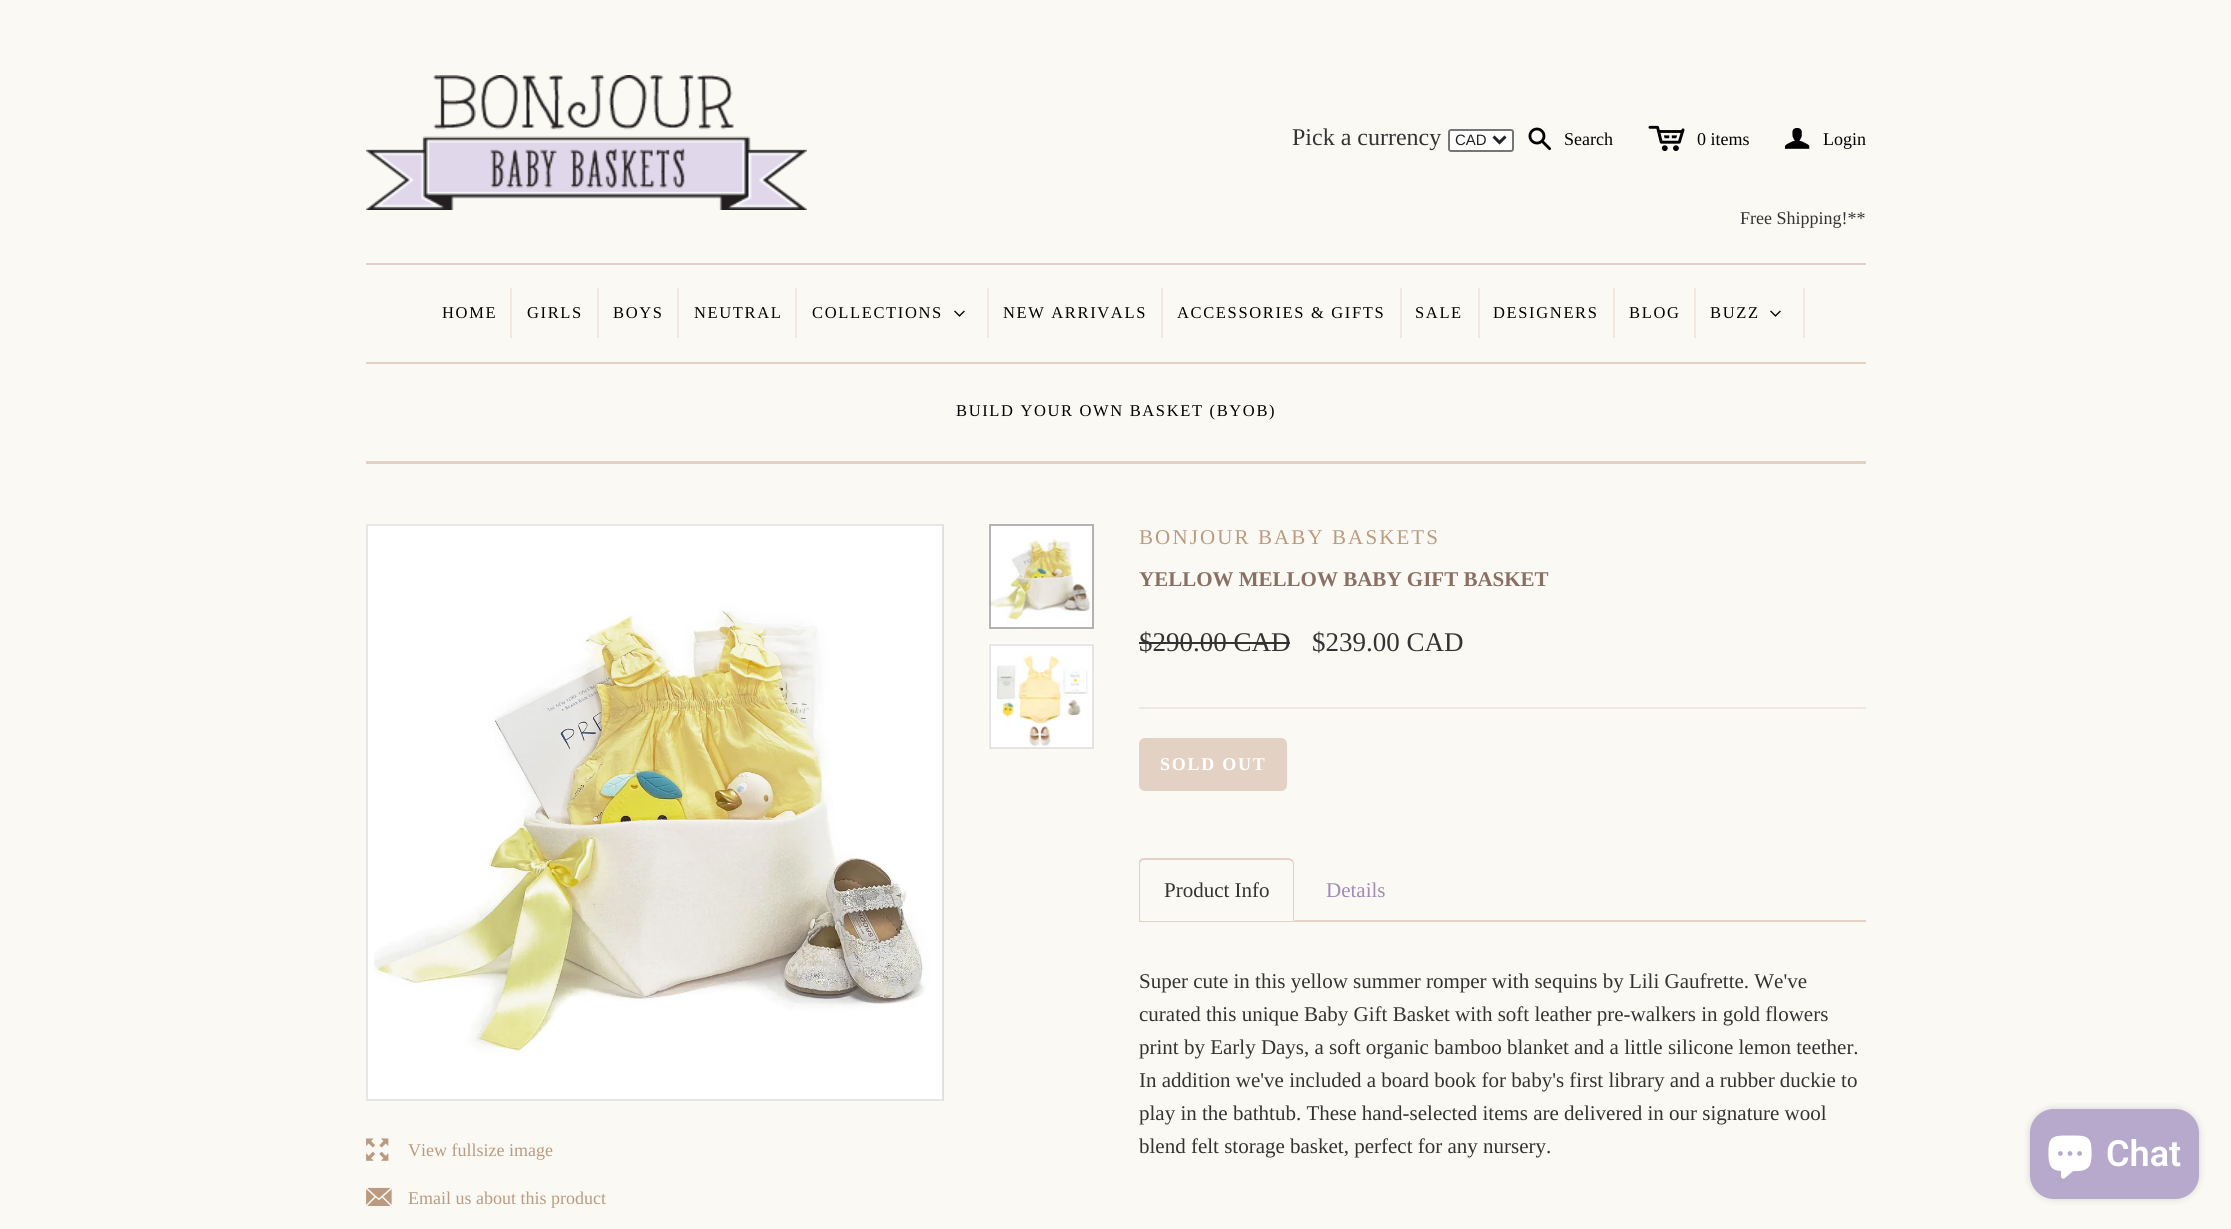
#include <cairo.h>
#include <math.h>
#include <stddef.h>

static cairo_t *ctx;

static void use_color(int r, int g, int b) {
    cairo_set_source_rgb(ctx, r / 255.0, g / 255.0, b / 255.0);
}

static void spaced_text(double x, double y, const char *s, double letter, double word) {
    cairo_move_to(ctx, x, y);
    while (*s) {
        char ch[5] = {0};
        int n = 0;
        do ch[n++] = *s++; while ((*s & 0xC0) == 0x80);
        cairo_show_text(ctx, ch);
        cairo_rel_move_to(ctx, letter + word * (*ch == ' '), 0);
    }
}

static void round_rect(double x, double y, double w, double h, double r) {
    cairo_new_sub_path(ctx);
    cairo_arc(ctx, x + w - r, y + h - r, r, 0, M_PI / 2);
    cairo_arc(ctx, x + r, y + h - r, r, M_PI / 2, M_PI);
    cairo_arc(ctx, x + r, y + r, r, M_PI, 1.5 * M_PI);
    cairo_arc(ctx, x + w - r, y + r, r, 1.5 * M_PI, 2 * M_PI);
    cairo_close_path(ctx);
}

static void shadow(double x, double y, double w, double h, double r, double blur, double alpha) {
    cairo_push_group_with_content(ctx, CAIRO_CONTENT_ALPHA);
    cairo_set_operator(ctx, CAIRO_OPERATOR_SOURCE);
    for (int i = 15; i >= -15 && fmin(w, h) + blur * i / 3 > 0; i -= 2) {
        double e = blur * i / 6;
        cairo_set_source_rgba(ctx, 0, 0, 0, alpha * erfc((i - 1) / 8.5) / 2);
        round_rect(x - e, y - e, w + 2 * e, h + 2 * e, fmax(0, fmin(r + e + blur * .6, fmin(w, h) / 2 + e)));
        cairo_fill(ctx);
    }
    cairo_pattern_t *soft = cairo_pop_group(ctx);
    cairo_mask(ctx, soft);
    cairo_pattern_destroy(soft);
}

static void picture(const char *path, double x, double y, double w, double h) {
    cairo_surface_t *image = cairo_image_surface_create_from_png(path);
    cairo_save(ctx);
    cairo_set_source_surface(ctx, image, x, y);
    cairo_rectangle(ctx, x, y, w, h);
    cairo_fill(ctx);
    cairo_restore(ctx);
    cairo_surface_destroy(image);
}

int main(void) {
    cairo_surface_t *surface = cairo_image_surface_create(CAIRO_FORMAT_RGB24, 2231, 1229);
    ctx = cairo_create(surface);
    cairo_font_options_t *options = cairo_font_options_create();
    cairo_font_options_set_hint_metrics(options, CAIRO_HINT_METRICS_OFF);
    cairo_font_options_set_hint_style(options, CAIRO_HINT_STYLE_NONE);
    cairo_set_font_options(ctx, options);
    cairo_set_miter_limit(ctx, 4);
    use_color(250, 249, 244);
    cairo_paint(ctx);
    picture("img1.png", 366, 75, 441, 135);
    cairo_select_font_face(ctx, "Liberation Serif", CAIRO_FONT_SLANT_NORMAL, CAIRO_FONT_WEIGHT_NORMAL);
    cairo_set_font_size(ctx, 24);
    use_color(51, 51, 51);
    cairo_move_to(ctx, 1292, 145);
    cairo_show_text(ctx, "Pick a currency");
    use_color(255, 255, 255);
    round_rect(1449, 130, 64, 21, 2);
    cairo_fill_preserve(ctx);
    use_color(118, 118, 118);
    cairo_stroke(ctx);
    cairo_new_path(ctx);
    cairo_move_to(ctx, 1493.5, 136.5);
    cairo_line_to(ctx, 1499.5, 142.5);
    cairo_line_to(ctx, 1505.5, 136.5);
    use_color(34, 34, 34);
    cairo_set_line_width(ctx, 3);
    cairo_stroke(ctx);
    cairo_select_font_face(ctx, "Liberation Sans", CAIRO_FONT_SLANT_NORMAL, CAIRO_FONT_WEIGHT_NORMAL);
    cairo_set_font_size(ctx, 15);
    cairo_move_to(ctx, 1455, 145);
    cairo_show_text(ctx, "CAD");
    picture("img2.png", 1528, 127, 23, 24);
    cairo_select_font_face(ctx, "Liberation Serif", CAIRO_FONT_SLANT_NORMAL, CAIRO_FONT_WEIGHT_NORMAL);
    cairo_set_font_size(ctx, 18);
    use_color(0, 0, 0);
    cairo_move_to(ctx, 1564, 145);
    cairo_show_text(ctx, "Search");
    picture("img3.png", 1648, 125, 37, 27);
    cairo_move_to(ctx, 1697, 145);
    cairo_show_text(ctx, "0 items");
    picture("img4.png", 1785, 127, 25, 22);
    cairo_move_to(ctx, 1823, 145);
    cairo_show_text(ctx, "Login");
    use_color(51, 51, 51);
    cairo_move_to(ctx, 1740, 224);
    cairo_show_text(ctx, "Free Shipping!**");
    use_color(227, 209, 195);
    cairo_rectangle(ctx, 366, 263, 1500, 2);
    cairo_fill(ctx);
    cairo_rectangle(ctx, 366, 461, 1500, 3);
    cairo_fill(ctx);
    cairo_set_font_size(ctx, 16.5);
    use_color(0, 0, 0);
    spaced_text(442, 318, "HOME", 1.65, 0);
    use_color(242, 231, 223);
    cairo_rectangle(ctx, 510, 288, 2, 50);
    cairo_fill(ctx);
    use_color(0, 0, 0);
    spaced_text(527, 318, "GIRLS", 1.65, 0);
    use_color(242, 231, 223);
    cairo_rectangle(ctx, 597, 288, 2, 50);
    cairo_fill(ctx);
    use_color(0, 0, 0);
    spaced_text(613, 318, "BOYS", 1.65, 0);
    use_color(242, 231, 223);
    cairo_rectangle(ctx, 677, 288, 2, 50);
    cairo_fill(ctx);
    use_color(0, 0, 0);
    spaced_text(694, 318, "NEUTRAL", 1.65, 0);
    use_color(242, 231, 223);
    cairo_rectangle(ctx, 795, 288, 2, 50);
    cairo_fill(ctx);
    use_color(0, 0, 0);
    spaced_text(812, 318, "COLLECTIONS", 1.65, 0);
    picture("img5.png", 954, 310, 11, 7);
    use_color(242, 231, 223);
    cairo_rectangle(ctx, 987, 288, 2, 50);
    cairo_fill(ctx);
    use_color(0, 0, 0);
    spaced_text(1003, 318, "NEW ARRIVALS", 1.65, 0);
    use_color(242, 231, 223);
    cairo_rectangle(ctx, 1161, 288, 2, 50);
    cairo_fill(ctx);
    use_color(0, 0, 0);
    spaced_text(1177, 318, "ACCESSORIES & GIFTS", 1.65, 0);
    use_color(242, 231, 223);
    cairo_rectangle(ctx, 1400, 288, 2, 50);
    cairo_fill(ctx);
    use_color(0, 0, 0);
    spaced_text(1415, 318, "SALE", 1.65, 0);
    use_color(242, 231, 223);
    cairo_rectangle(ctx, 1478, 288, 2, 50);
    cairo_fill(ctx);
    use_color(0, 0, 0);
    spaced_text(1493, 318, "DESIGNERS", 1.65, 0);
    use_color(242, 231, 223);
    cairo_rectangle(ctx, 1613, 288, 2, 50);
    cairo_fill(ctx);
    use_color(0, 0, 0);
    spaced_text(1629, 318, "BLOG", 1.65, 0);
    use_color(242, 231, 223);
    cairo_rectangle(ctx, 1694, 288, 2, 50);
    cairo_fill(ctx);
    use_color(0, 0, 0);
    spaced_text(1710, 318, "BUZZ", 1.65, 0);
    picture("img5.png", 1770, 310, 11, 7);
    use_color(242, 231, 223);
    cairo_rectangle(ctx, 1803, 288, 2, 50);
    cairo_fill(ctx);
    use_color(0, 0, 0);
    spaced_text(956, 416, "BUILD YOUR OWN BASKET (BYOB)", 1.65, 0);
    use_color(227, 209, 195);
    cairo_rectangle(ctx, 366, 362, 1500, 2);
    cairo_fill(ctx);
    picture("img6.png", 988, 523, 106, 106);
    cairo_rectangle(ctx, 990, 525, 103, 103);
    cairo_set_source_rgba(ctx, 0, 0, 0, 0.3);
    cairo_set_line_width(ctx, 2);
    cairo_stroke(ctx);
    picture("img7.png", 988, 643, 106, 106);
    cairo_rectangle(ctx, 990, 645, 103, 103);
    cairo_set_source_rgba(ctx, 0, 0, 0, 0.1);
    cairo_stroke(ctx);
    cairo_set_font_size(ctx, 21);
    use_color(186, 155, 130);
    spaced_text(1139, 544, "BONJOUR BABY BASKETS", 2.1, 0);
    cairo_select_font_face(ctx, "Liberation Serif", CAIRO_FONT_SLANT_NORMAL, CAIRO_FONT_WEIGHT_BOLD);
    use_color(138, 111, 101);
    cairo_move_to(ctx, 1139, 586);
    cairo_show_text(ctx, "YELLOW MELLOW BABY GIFT BASKET");
    cairo_select_font_face(ctx, "Liberation Serif", CAIRO_FONT_SLANT_NORMAL, CAIRO_FONT_WEIGHT_NORMAL);
    cairo_set_font_size(ctx, 27);
    use_color(51, 51, 51);
    cairo_move_to(ctx, 1139, 651);
    cairo_show_text(ctx, "$290.00 CAD");
    cairo_rectangle(ctx, 1139, 642, 151, 2);
    cairo_fill(ctx);
    cairo_move_to(ctx, 1312, 651);
    cairo_show_text(ctx, "$239.00 CAD");
    use_color(242, 231, 223);
    cairo_rectangle(ctx, 1139, 707, 727, 2);
    cairo_fill(ctx);
    use_color(227, 209, 195);
    round_rect(1139, 738, 148, 53, 6);
    cairo_fill(ctx);
    cairo_select_font_face(ctx, "Liberation Serif", CAIRO_FONT_SLANT_NORMAL, CAIRO_FONT_WEIGHT_BOLD);
    cairo_set_font_size(ctx, 18);
    use_color(255, 255, 255);
    spaced_text(1160, 770, "SOLD OUT", 1.75, 0);
    use_color(227, 209, 195);
    cairo_rectangle(ctx, 1139, 920, 727, 2);
    cairo_fill(ctx);
    use_color(250, 249, 244);
    cairo_new_path(ctx);
    cairo_move_to(ctx, 1145, 858);
    cairo_line_to(ctx, 1289, 858);
    cairo_curve_to(ctx, 1292.5, 858, 1295, 860.5, 1295, 864);
    cairo_line_to(ctx, 1295, 921);
    cairo_line_to(ctx, 1139, 921);
    cairo_line_to(ctx, 1139, 864);
    cairo_curve_to(ctx, 1139, 860.5, 1141.5, 858, 1145, 858);
    cairo_close_path(ctx);
    cairo_fill(ctx);
    cairo_save(ctx);
    cairo_rectangle(ctx, 1139, 858, 727, 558);
    cairo_clip(ctx);
    use_color(227, 209, 195);
    cairo_set_fill_rule(ctx, CAIRO_FILL_RULE_EVEN_ODD);
    cairo_new_path(ctx);
    cairo_move_to(ctx, 1144, 858);
    cairo_line_to(ctx, 1288, 858);
    cairo_curve_to(ctx, 1292, 858, 1294, 861, 1294, 864);
    cairo_line_to(ctx, 1294, 921);
    cairo_line_to(ctx, 1138, 921);
    cairo_line_to(ctx, 1138, 864);
    cairo_curve_to(ctx, 1138, 861, 1141, 858, 1144, 858);
    cairo_close_path(ctx);
    cairo_move_to(ctx, 1144, 860);
    cairo_line_to(ctx, 1288, 860);
    cairo_curve_to(ctx, 1291, 860, 1293, 862, 1293, 864);
    cairo_line_to(ctx, 1293, 921);
    cairo_line_to(ctx, 1140, 921);
    cairo_line_to(ctx, 1140, 864);
    cairo_curve_to(ctx, 1140, 862, 1142, 860, 1144, 860);
    cairo_close_path(ctx);
    cairo_fill(ctx);
    cairo_restore(ctx);
    cairo_select_font_face(ctx, "Liberation Serif", CAIRO_FONT_SLANT_NORMAL, CAIRO_FONT_WEIGHT_NORMAL);
    cairo_set_font_size(ctx, 21);
    use_color(51, 51, 51);
    cairo_move_to(ctx, 1164, 897);
    cairo_show_text(ctx, "Product Info");
    use_color(160, 139, 183);
    cairo_move_to(ctx, 1326, 897);
    cairo_show_text(ctx, "Details");
    use_color(51, 51, 51);
    cairo_move_to(ctx, 1139, 988);
    cairo_show_text(ctx, "Super cute in this yellow summer romper with sequins by Lili Gaufrette. We've");
    cairo_move_to(ctx, 1139, 1021);
    cairo_show_text(ctx, "curated this unique Baby Gift Basket with soft leather pre-walkers in gold flowers");
    cairo_move_to(ctx, 1139, 1054);
    cairo_show_text(ctx, "print by Early Days, a soft organic bamboo blanket and a little silicone lemon teether.");
    cairo_move_to(ctx, 1139, 1087);
    cairo_show_text(ctx, "In addition we've included a board book for baby's first library and a rubber duckie to");
    cairo_move_to(ctx, 1139, 1120);
    cairo_show_text(ctx, "play in the bathtub. These hand-selected items are delivered in our signature wool");
    cairo_move_to(ctx, 1139, 1153);
    cairo_show_text(ctx, "blend felt storage basket, perfect for any nursery.");
    picture("img8.png", 366, 524, 577, 577);
    cairo_rectangle(ctx, 367, 525, 576, 575);
    cairo_set_source_rgba(ctx, 0, 0, 0, 0.1);
    cairo_stroke(ctx);
    picture("img9.png", 366, 1138, 23, 23);
    cairo_set_font_size(ctx, 18);
    use_color(186, 155, 130);
    cairo_move_to(ctx, 408, 1156);
    cairo_show_text(ctx, "View fullsize image");
    picture("img10.png", 366, 1187, 26, 19);
    cairo_move_to(ctx, 408, 1204);
    cairo_show_text(ctx, "Email us about this product");
    use_color(0, 0, 0);
    shadow(2030, 1109, 169, 90, 24, 4, 0.15);
    use_color(182, 169, 204);
    round_rect(2030, 1109, 169, 90, 24);
    cairo_fill(ctx);
    picture("img11.png", 2048, 1135, 44, 44);
    cairo_select_font_face(ctx, "Roboto SemiBold", CAIRO_FONT_SLANT_NORMAL, CAIRO_FONT_WEIGHT_NORMAL);
    cairo_set_font_size(ctx, 36);
    use_color(255, 255, 255);
    cairo_move_to(ctx, 2106, 1166);
    cairo_show_text(ctx, "Chat");
    cairo_surface_write_to_png(surface, "result.png");
    cairo_font_options_destroy(options);
    cairo_destroy(ctx);
    cairo_surface_destroy(surface);
    return 0;
}
